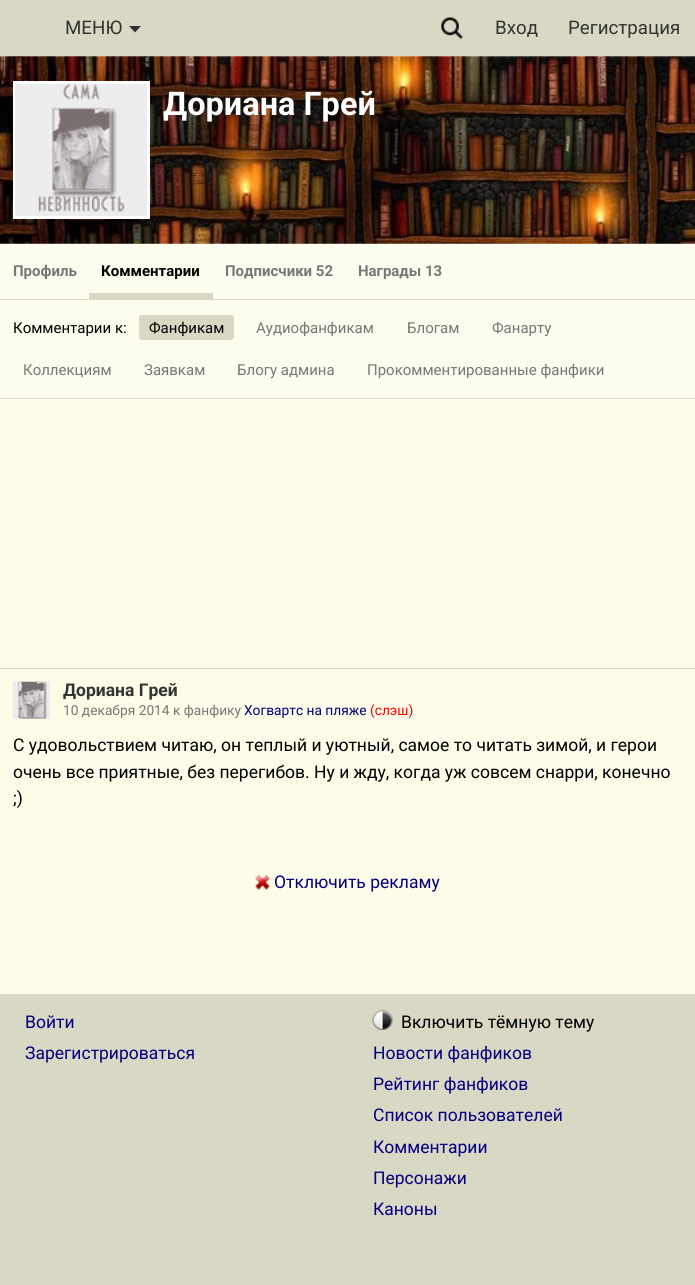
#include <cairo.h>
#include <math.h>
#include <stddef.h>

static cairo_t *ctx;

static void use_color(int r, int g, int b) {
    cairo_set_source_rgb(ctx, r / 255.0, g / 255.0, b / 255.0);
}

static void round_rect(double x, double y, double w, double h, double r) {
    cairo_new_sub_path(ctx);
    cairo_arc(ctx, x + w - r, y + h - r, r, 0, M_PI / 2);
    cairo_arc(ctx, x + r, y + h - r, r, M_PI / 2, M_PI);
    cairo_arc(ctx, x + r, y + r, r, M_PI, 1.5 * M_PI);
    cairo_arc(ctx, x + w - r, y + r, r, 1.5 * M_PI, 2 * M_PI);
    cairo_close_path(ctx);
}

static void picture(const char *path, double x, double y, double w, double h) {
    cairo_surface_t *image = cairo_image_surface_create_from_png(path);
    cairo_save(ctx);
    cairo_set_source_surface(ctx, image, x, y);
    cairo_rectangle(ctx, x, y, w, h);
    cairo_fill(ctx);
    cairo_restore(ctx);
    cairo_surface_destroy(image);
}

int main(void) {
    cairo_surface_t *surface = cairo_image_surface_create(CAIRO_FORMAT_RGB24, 695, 1285);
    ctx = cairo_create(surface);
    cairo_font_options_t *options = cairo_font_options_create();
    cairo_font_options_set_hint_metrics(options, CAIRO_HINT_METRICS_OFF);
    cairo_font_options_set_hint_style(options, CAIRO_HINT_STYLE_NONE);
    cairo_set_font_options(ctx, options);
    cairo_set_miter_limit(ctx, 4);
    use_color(252, 252, 232);
    cairo_paint(ctx);
    use_color(216, 216, 196);
    cairo_rectangle(ctx, 0, 0, 695, 56);
    cairo_fill(ctx);
    cairo_select_font_face(ctx, "Roboto", CAIRO_FONT_SLANT_NORMAL, CAIRO_FONT_WEIGHT_NORMAL);
    cairo_set_font_size(ctx, 18.75);
    use_color(51, 51, 51);
    cairo_move_to(ctx, 65, 34);
    cairo_show_text(ctx, "МЕНЮ");
    cairo_new_path(ctx);
    cairo_move_to(ctx, 129, 26);
    cairo_line_to(ctx, 141, 26);
    cairo_line_to(ctx, 135, 32.5);
    cairo_close_path(ctx);
    cairo_fill(ctx);
    picture("img1.png", 441, 17, 22, 22);
    cairo_move_to(ctx, 495, 34);
    cairo_show_text(ctx, "Вход");
    cairo_move_to(ctx, 568, 34);
    cairo_show_text(ctx, "Регистрация");
    picture("img2.png", 0, 56, 695, 188);
    cairo_rectangle(ctx, 14.5, 82.5, 134, 135);
    use_color(255, 255, 255);
    cairo_set_line_width(ctx, 3);
    cairo_stroke(ctx);
    picture("img3.png", 15, 83, 133, 133);
    cairo_select_font_face(ctx, "Roboto", CAIRO_FONT_SLANT_NORMAL, CAIRO_FONT_WEIGHT_BOLD);
    cairo_set_font_size(ctx, 32.5);
    cairo_move_to(ctx, 163, 115);
    cairo_show_text(ctx, "Дориана Грей");
    use_color(252, 252, 239);
    cairo_rectangle(ctx, 0, 244, 695, 55);
    cairo_fill(ctx);
    use_color(216, 216, 196);
    cairo_rectangle(ctx, 0, 299, 695, 1);
    cairo_fill(ctx);
    cairo_set_font_size(ctx, 15);
    use_color(119, 119, 119);
    cairo_move_to(ctx, 13, 276);
    cairo_show_text(ctx, "Профиль");
    use_color(216, 216, 196);
    cairo_rectangle(ctx, 89, 293, 124, 6);
    cairo_fill(ctx);
    use_color(0, 0, 0);
    cairo_move_to(ctx, 101, 276);
    cairo_show_text(ctx, "Комментарии");
    use_color(119, 119, 119);
    cairo_move_to(ctx, 225, 276);
    cairo_show_text(ctx, "Подписчики 52");
    cairo_move_to(ctx, 358, 276);
    cairo_show_text(ctx, "Награды 13");
    use_color(252, 252, 239);
    cairo_rectangle(ctx, 0, 300, 695, 98);
    cairo_fill(ctx);
    use_color(216, 216, 196);
    cairo_rectangle(ctx, 0, 398, 695, 1);
    cairo_fill(ctx);
    cairo_select_font_face(ctx, "Roboto", CAIRO_FONT_SLANT_NORMAL, CAIRO_FONT_WEIGHT_NORMAL);
    use_color(0, 0, 0);
    cairo_move_to(ctx, 13, 333);
    cairo_show_text(ctx, "Комментарии к:");
    use_color(216, 216, 196);
    round_rect(139, 315, 95, 25, 2.5);
    cairo_fill(ctx);
    use_color(0, 0, 0);
    cairo_move_to(ctx, 149, 333);
    cairo_show_text(ctx, "Фанфикам");
    use_color(119, 119, 119);
    cairo_move_to(ctx, 256, 333);
    cairo_show_text(ctx, "Аудиофанфикам");
    cairo_move_to(ctx, 407, 333);
    cairo_show_text(ctx, "Блогам");
    cairo_move_to(ctx, 492, 333);
    cairo_show_text(ctx, "Фанарту");
    cairo_move_to(ctx, 23, 375);
    cairo_show_text(ctx, "Коллекциям");
    cairo_move_to(ctx, 144, 375);
    cairo_show_text(ctx, "Заявкам");
    cairo_move_to(ctx, 237, 375);
    cairo_show_text(ctx, "Блогу админа");
    cairo_move_to(ctx, 367, 375);
    cairo_show_text(ctx, "Прокомментированные фанфики");
    use_color(216, 216, 196);
    cairo_rectangle(ctx, 0, 668, 695, 1);
    cairo_fill(ctx);
    picture("img4.png", 12, 681, 38, 38);
    cairo_select_font_face(ctx, "Roboto", CAIRO_FONT_SLANT_NORMAL, CAIRO_FONT_WEIGHT_BOLD);
    cairo_set_font_size(ctx, 17.5);
    use_color(51, 51, 51);
    cairo_move_to(ctx, 63, 696);
    cairo_show_text(ctx, "Дориана Грей");
    cairo_select_font_face(ctx, "Roboto", CAIRO_FONT_SLANT_NORMAL, CAIRO_FONT_WEIGHT_NORMAL);
    cairo_set_font_size(ctx, 13.75);
    use_color(119, 119, 119);
    cairo_move_to(ctx, 63, 715);
    cairo_show_text(ctx, "10 декабря 2014 к фанфику");
    use_color(0, 0, 128);
    cairo_move_to(ctx, 244, 715);
    cairo_show_text(ctx, "Хогвартс на пляже");
    use_color(255, 0, 0);
    cairo_move_to(ctx, 370, 715);
    cairo_show_text(ctx, "(слэш)");
    cairo_set_font_size(ctx, 17.5);
    use_color(0, 0, 0);
    cairo_move_to(ctx, 13, 751);
    cairo_show_text(ctx, "С удовольствием читаю, он теплый и уютный, самое то читать зимой, и герои");
    cairo_move_to(ctx, 13, 778);
    cairo_show_text(ctx, "очень все приятные, без перегибов. Ну и жду, когда уж совсем снарри, конечно");
    cairo_move_to(ctx, 13, 804);
    cairo_show_text(ctx, ";)");
    picture("img5.png", 255, 875, 15, 15);
    use_color(0, 0, 128);
    cairo_move_to(ctx, 274, 888);
    cairo_show_text(ctx, "Отключить рекламу");
    use_color(216, 216, 196);
    cairo_rectangle(ctx, 0, 994, 695, 291);
    cairo_fill(ctx);
    use_color(0, 0, 128);
    cairo_move_to(ctx, 25, 1028);
    cairo_show_text(ctx, "Войти");
    cairo_move_to(ctx, 25, 1059);
    cairo_show_text(ctx, "Зарегистрироваться");
    picture("img6.png", 372, 1010, 21, 20);
    use_color(0, 0, 0);
    cairo_move_to(ctx, 401, 1028);
    cairo_show_text(ctx, "Включить тёмную тему");
    use_color(0, 0, 128);
    cairo_move_to(ctx, 373, 1059);
    cairo_show_text(ctx, "Новости фанфиков");
    cairo_move_to(ctx, 373, 1090);
    cairo_show_text(ctx, "Рейтинг фанфиков");
    cairo_move_to(ctx, 373, 1121);
    cairo_show_text(ctx, "Список пользователей");
    cairo_move_to(ctx, 373, 1153);
    cairo_show_text(ctx, "Комментарии");
    cairo_move_to(ctx, 373, 1184);
    cairo_show_text(ctx, "Персонажи");
    cairo_move_to(ctx, 373, 1215);
    cairo_show_text(ctx, "Каноны");
    cairo_surface_write_to_png(surface, "result.png");
    cairo_font_options_destroy(options);
    cairo_destroy(ctx);
    cairo_surface_destroy(surface);
    return 0;
}
